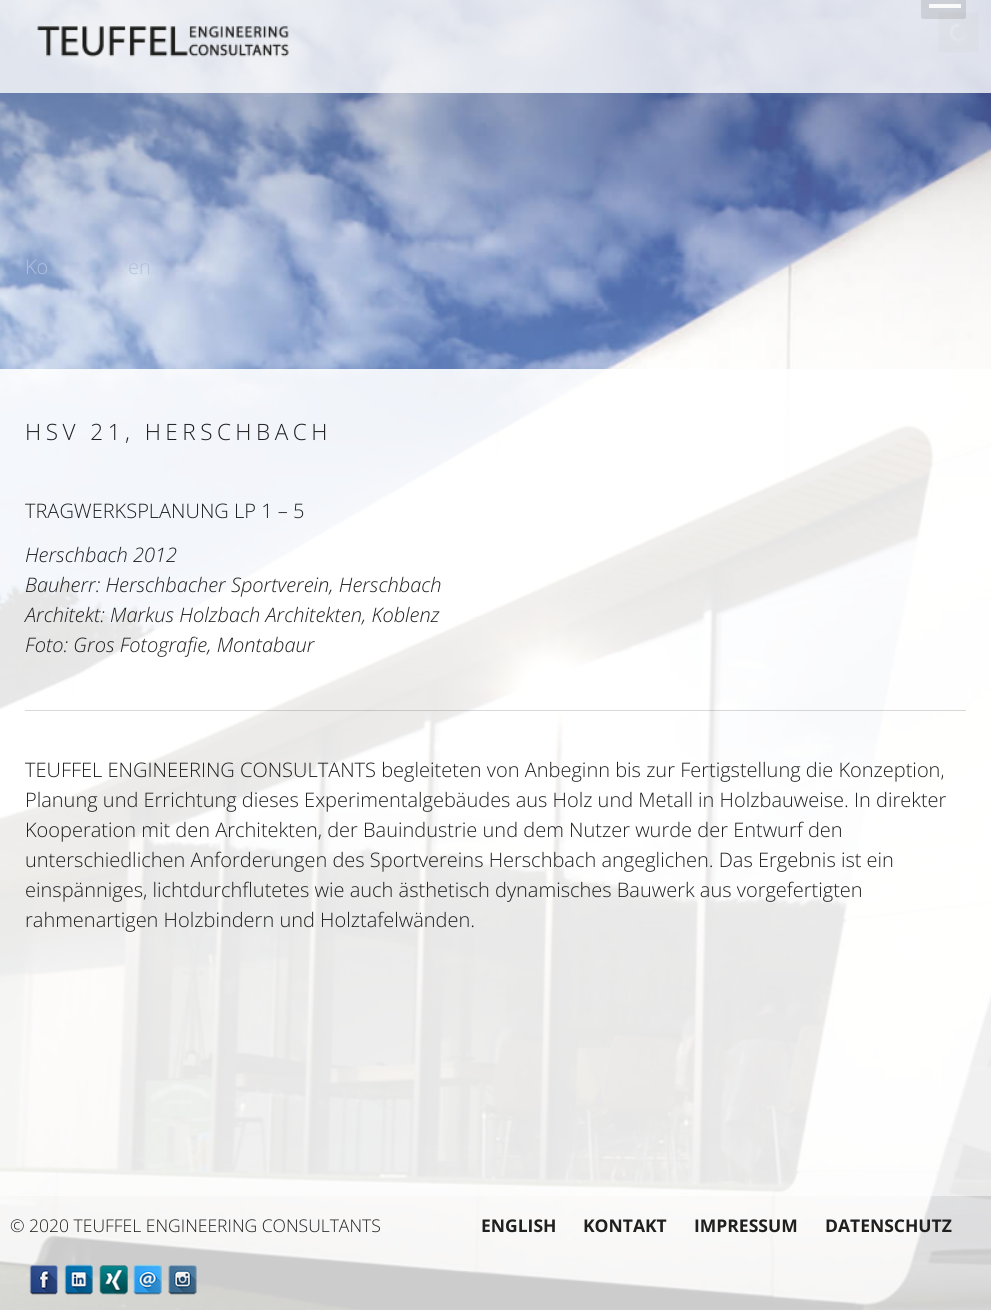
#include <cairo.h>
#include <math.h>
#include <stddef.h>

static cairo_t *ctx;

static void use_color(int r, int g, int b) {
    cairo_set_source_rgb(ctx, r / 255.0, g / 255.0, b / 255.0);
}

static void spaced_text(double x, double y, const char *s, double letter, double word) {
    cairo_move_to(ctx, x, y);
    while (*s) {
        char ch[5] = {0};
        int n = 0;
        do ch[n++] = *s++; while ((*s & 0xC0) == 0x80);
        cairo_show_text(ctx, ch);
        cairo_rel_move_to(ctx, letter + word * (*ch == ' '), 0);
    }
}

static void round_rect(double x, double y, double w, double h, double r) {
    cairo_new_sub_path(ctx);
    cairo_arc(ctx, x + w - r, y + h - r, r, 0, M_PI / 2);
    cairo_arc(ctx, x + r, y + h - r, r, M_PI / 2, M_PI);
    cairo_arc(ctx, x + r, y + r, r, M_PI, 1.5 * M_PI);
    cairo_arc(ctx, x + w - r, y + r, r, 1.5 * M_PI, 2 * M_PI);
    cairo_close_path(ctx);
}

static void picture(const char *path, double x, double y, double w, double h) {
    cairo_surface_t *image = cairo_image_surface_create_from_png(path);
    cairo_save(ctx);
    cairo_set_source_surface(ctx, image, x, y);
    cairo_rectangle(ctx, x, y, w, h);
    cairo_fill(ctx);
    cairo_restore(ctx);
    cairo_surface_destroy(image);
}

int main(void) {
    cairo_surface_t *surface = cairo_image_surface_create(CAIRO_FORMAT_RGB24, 991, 1310);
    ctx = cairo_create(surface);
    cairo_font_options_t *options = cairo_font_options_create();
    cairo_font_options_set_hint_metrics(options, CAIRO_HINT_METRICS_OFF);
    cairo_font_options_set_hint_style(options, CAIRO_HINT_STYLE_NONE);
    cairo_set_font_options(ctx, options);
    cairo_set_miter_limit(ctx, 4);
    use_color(255, 255, 255);
    cairo_paint(ctx);
    picture("img1.png", 0, 1309, 991, 1);
    picture("img2.png", 0, 0, 991, 1310);
    picture("img3.png", 938, 12, 41, 41);
    cairo_set_source_rgba(ctx, 1, 1, 1, 0.8);
    cairo_rectangle(ctx, 0, 0, 991, 93);
    cairo_fill(ctx);
    cairo_set_source_rgba(ctx, 0, 0, 0, 0.1);
    round_rect(921, -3, 45, 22, 2.5);
    cairo_fill(ctx);
    cairo_set_source_rgba(ctx, 1, 1, 1, 0.9);
    cairo_rectangle(ctx, 929, 4, 32, 4);
    cairo_fill(ctx);
    cairo_select_font_face(ctx, "Open Sans Light", CAIRO_FONT_SLANT_NORMAL, CAIRO_FONT_WEIGHT_NORMAL);
    cairo_set_font_size(ctx, 20);
    use_color(176, 192, 221);
    cairo_move_to(ctx, 25, 274);
    cairo_show_text(ctx, "Ko");
    cairo_move_to(ctx, 128, 274);
    cairo_show_text(ctx, "en");
    picture("img4.png", 37, 26, 252, 31);
    cairo_set_source_rgba(ctx, 1, 1, 1, 0.9);
    cairo_rectangle(ctx, 0, 369, 991, 827);
    cairo_fill(ctx);
    cairo_set_font_size(ctx, 22.5);
    use_color(32, 32, 32);
    spaced_text(25, 440, "HSV 21, HERSCHBACH", 4.5, 0);
    cairo_set_font_size(ctx, 20);
    cairo_move_to(ctx, 25, 518);
    cairo_show_text(ctx, "TRAGWERKSPLANUNG LP 1 – 5");
    cairo_select_font_face(ctx, "Open Sans Light", CAIRO_FONT_SLANT_ITALIC, CAIRO_FONT_WEIGHT_NORMAL);
    cairo_move_to(ctx, 25, 562);
    cairo_show_text(ctx, "Herschbach 2012");
    cairo_move_to(ctx, 25, 592);
    cairo_show_text(ctx, "Bauherr: Herschbacher Sportverein, Herschbach");
    cairo_move_to(ctx, 25, 622);
    cairo_show_text(ctx, "Architekt: Markus Holzbach Architekten, Koblenz");
    cairo_move_to(ctx, 25, 652);
    cairo_show_text(ctx, "Foto: Gros Fotografie, Montabaur");
    cairo_set_source_rgba(ctx, 0, 0, 0, 0.15);
    cairo_rectangle(ctx, 25, 710, 941, 1);
    cairo_fill(ctx);
    cairo_select_font_face(ctx, "Open Sans Light", CAIRO_FONT_SLANT_NORMAL, CAIRO_FONT_WEIGHT_NORMAL);
    use_color(32, 32, 32);
    cairo_move_to(ctx, 25, 777);
    cairo_show_text(ctx, "TEUFFEL ENGINEERING CONSULTANTS begleiteten von Anbeginn bis zur Fertigstellung die Konzeption,");
    cairo_move_to(ctx, 25, 807);
    cairo_show_text(ctx, "Planung und Errichtung dieses Experimentalgebäudes aus Holz und Metall in Holzbauweise. In direkter");
    cairo_move_to(ctx, 25, 837);
    cairo_show_text(ctx, "Kooperation mit den Architekten, der Bauindustrie und dem Nutzer wurde der Entwurf den");
    cairo_move_to(ctx, 25, 867);
    cairo_show_text(ctx, "unterschiedlichen Anforderungen des Sportvereins Herschbach angeglichen. Das Ergebnis ist ein");
    cairo_move_to(ctx, 25, 897);
    cairo_show_text(ctx, "einspänniges, lichtdurchflutetes wie auch ästhetisch dynamisches Bauwerk aus vorgefertigten");
    cairo_move_to(ctx, 25, 927);
    cairo_show_text(ctx, "rahmenartigen Holzbindern und Holztafelwänden.");
    cairo_set_source_rgba(ctx, 1, 1, 1, 0.8);
    cairo_rectangle(ctx, 0, 1196, 991, 114);
    cairo_fill(ctx);
    cairo_set_font_size(ctx, 17.5);
    use_color(32, 32, 32);
    cairo_move_to(ctx, 10, 1232);
    cairo_show_text(ctx, "© 2020 TEUFFEL ENGINEERING CONSULTANTS");
    cairo_select_font_face(ctx, "Open Sans", CAIRO_FONT_SLANT_NORMAL, CAIRO_FONT_WEIGHT_BOLD);
    cairo_move_to(ctx, 481, 1232);
    cairo_show_text(ctx, "ENGLISH");
    cairo_move_to(ctx, 583, 1232);
    cairo_show_text(ctx, "KONTAKT");
    cairo_move_to(ctx, 694, 1232);
    cairo_show_text(ctx, "IMPRESSUM");
    cairo_move_to(ctx, 825, 1232);
    cairo_show_text(ctx, "DATENSCHUTZ");
    picture("img5.png", 29, 1265, 29, 30);
    picture("img6.png", 64, 1264, 29, 31);
    picture("img7.png", 99, 1265, 29, 30);
    picture("img8.png", 133, 1264, 29, 31);
    picture("img9.png", 168, 1265, 29, 30);
    cairo_surface_write_to_png(surface, "result.png");
    cairo_font_options_destroy(options);
    cairo_destroy(ctx);
    cairo_surface_destroy(surface);
    return 0;
}
